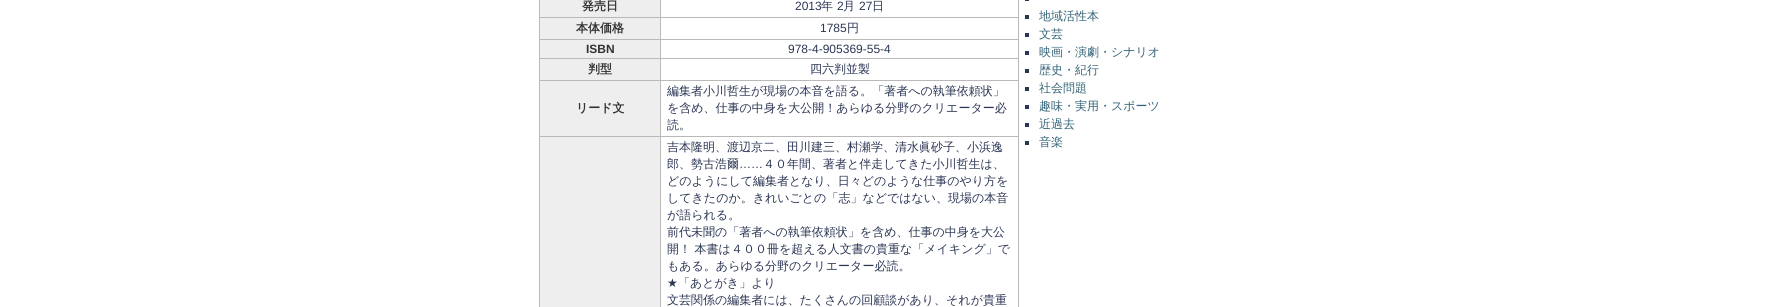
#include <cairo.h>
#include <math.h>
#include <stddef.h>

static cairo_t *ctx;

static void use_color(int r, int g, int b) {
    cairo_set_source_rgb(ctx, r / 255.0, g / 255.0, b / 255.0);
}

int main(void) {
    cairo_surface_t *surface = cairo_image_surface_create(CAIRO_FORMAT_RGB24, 1778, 307);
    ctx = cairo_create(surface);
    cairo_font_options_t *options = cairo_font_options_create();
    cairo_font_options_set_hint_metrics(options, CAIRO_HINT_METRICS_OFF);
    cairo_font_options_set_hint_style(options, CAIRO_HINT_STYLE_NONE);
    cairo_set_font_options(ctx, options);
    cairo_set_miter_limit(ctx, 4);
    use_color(255, 255, 255);
    cairo_paint(ctx);
    use_color(238, 238, 238);
    cairo_rectangle(ctx, 540, 0, 120, 17);
    cairo_fill(ctx);
    cairo_select_font_face(ctx, "WenQuanYi Zen Hei", CAIRO_FONT_SLANT_NORMAL, CAIRO_FONT_WEIGHT_BOLD);
    cairo_set_font_size(ctx, 12);
    use_color(51, 51, 51);
    cairo_move_to(ctx, 582, 10);
    cairo_show_text(ctx, "発売日");
    use_color(185, 185, 185);
    cairo_rectangle(ctx, 660, 17, 359, 1);
    cairo_fill(ctx);
    cairo_rectangle(ctx, 660, 39, 359, 1);
    cairo_fill(ctx);
    cairo_rectangle(ctx, 660, 58, 359, 1);
    cairo_fill(ctx);
    cairo_rectangle(ctx, 660, 80, 359, 1);
    cairo_fill(ctx);
    cairo_rectangle(ctx, 660, 136, 359, 1);
    cairo_fill(ctx);
    cairo_rectangle(ctx, 660, 136, 1, 171);
    cairo_fill(ctx);
    cairo_rectangle(ctx, 539, 136, 122, 1);
    cairo_fill(ctx);
    cairo_rectangle(ctx, 660, 80, 1, 57);
    cairo_fill(ctx);
    cairo_rectangle(ctx, 539, 80, 122, 1);
    cairo_fill(ctx);
    cairo_rectangle(ctx, 660, 58, 1, 23);
    cairo_fill(ctx);
    cairo_rectangle(ctx, 539, 58, 122, 1);
    cairo_fill(ctx);
    cairo_rectangle(ctx, 660, 39, 1, 20);
    cairo_fill(ctx);
    cairo_rectangle(ctx, 539, 39, 122, 1);
    cairo_fill(ctx);
    cairo_rectangle(ctx, 660, 17, 1, 23);
    cairo_fill(ctx);
    cairo_rectangle(ctx, 539, 17, 122, 1);
    cairo_fill(ctx);
    cairo_rectangle(ctx, 660, 0, 1, 18);
    cairo_fill(ctx);
    cairo_select_font_face(ctx, "Liberation Sans", CAIRO_FONT_SLANT_NORMAL, CAIRO_FONT_WEIGHT_NORMAL);
    use_color(43, 54, 84);
    cairo_move_to(ctx, 795, 10);
    cairo_show_text(ctx, "2013");
    cairo_select_font_face(ctx, "WenQuanYi Zen Hei Medium", CAIRO_FONT_SLANT_NORMAL, CAIRO_FONT_WEIGHT_NORMAL);
    cairo_move_to(ctx, 821, 10);
    cairo_show_text(ctx, "年");
    cairo_select_font_face(ctx, "Liberation Sans", CAIRO_FONT_SLANT_NORMAL, CAIRO_FONT_WEIGHT_NORMAL);
    cairo_move_to(ctx, 837, 10);
    cairo_show_text(ctx, "2");
    cairo_select_font_face(ctx, "WenQuanYi Zen Hei Medium", CAIRO_FONT_SLANT_NORMAL, CAIRO_FONT_WEIGHT_NORMAL);
    cairo_move_to(ctx, 843, 10);
    cairo_show_text(ctx, "月");
    cairo_select_font_face(ctx, "Liberation Sans", CAIRO_FONT_SLANT_NORMAL, CAIRO_FONT_WEIGHT_NORMAL);
    cairo_move_to(ctx, 859, 10);
    cairo_show_text(ctx, "27");
    cairo_select_font_face(ctx, "WenQuanYi Zen Hei Medium", CAIRO_FONT_SLANT_NORMAL, CAIRO_FONT_WEIGHT_NORMAL);
    cairo_move_to(ctx, 872, 10);
    cairo_show_text(ctx, "日");
    use_color(238, 238, 238);
    cairo_rectangle(ctx, 540, 18, 120, 21);
    cairo_fill(ctx);
    use_color(185, 185, 185);
    cairo_rectangle(ctx, 539, 136, 1, 171);
    cairo_fill(ctx);
    cairo_rectangle(ctx, 539, 80, 1, 57);
    cairo_fill(ctx);
    cairo_rectangle(ctx, 539, 58, 1, 23);
    cairo_fill(ctx);
    cairo_rectangle(ctx, 539, 39, 1, 20);
    cairo_fill(ctx);
    cairo_rectangle(ctx, 539, 0, 1, 40);
    cairo_fill(ctx);
    cairo_select_font_face(ctx, "WenQuanYi Zen Hei", CAIRO_FONT_SLANT_NORMAL, CAIRO_FONT_WEIGHT_BOLD);
    use_color(51, 51, 51);
    cairo_move_to(ctx, 576, 32);
    cairo_show_text(ctx, "本体価格");
    use_color(185, 185, 185);
    cairo_rectangle(ctx, 1018, 136, 1, 171);
    cairo_fill(ctx);
    cairo_rectangle(ctx, 1018, 80, 1, 57);
    cairo_fill(ctx);
    cairo_rectangle(ctx, 1018, 58, 1, 23);
    cairo_fill(ctx);
    cairo_rectangle(ctx, 1018, 39, 1, 20);
    cairo_fill(ctx);
    cairo_rectangle(ctx, 1018, 0, 1, 40);
    cairo_fill(ctx);
    cairo_select_font_face(ctx, "Liberation Sans", CAIRO_FONT_SLANT_NORMAL, CAIRO_FONT_WEIGHT_NORMAL);
    use_color(43, 54, 84);
    cairo_move_to(ctx, 820, 32);
    cairo_show_text(ctx, "1785");
    cairo_select_font_face(ctx, "WenQuanYi Zen Hei Medium", CAIRO_FONT_SLANT_NORMAL, CAIRO_FONT_WEIGHT_NORMAL);
    cairo_move_to(ctx, 847, 32);
    cairo_show_text(ctx, "円");
    use_color(238, 238, 238);
    cairo_rectangle(ctx, 540, 40, 120, 18);
    cairo_fill(ctx);
    cairo_select_font_face(ctx, "Liberation Sans", CAIRO_FONT_SLANT_NORMAL, CAIRO_FONT_WEIGHT_BOLD);
    use_color(51, 51, 51);
    cairo_move_to(ctx, 586, 53);
    cairo_show_text(ctx, "ISBN");
    cairo_select_font_face(ctx, "Liberation Sans", CAIRO_FONT_SLANT_NORMAL, CAIRO_FONT_WEIGHT_NORMAL);
    use_color(43, 54, 84);
    cairo_move_to(ctx, 788, 53);
    cairo_show_text(ctx, "978-4-905369-55-4");
    use_color(238, 238, 238);
    cairo_rectangle(ctx, 540, 59, 120, 21);
    cairo_fill(ctx);
    cairo_select_font_face(ctx, "WenQuanYi Zen Hei", CAIRO_FONT_SLANT_NORMAL, CAIRO_FONT_WEIGHT_BOLD);
    use_color(51, 51, 51);
    cairo_move_to(ctx, 588, 73);
    cairo_show_text(ctx, "判型");
    cairo_select_font_face(ctx, "WenQuanYi Zen Hei Medium", CAIRO_FONT_SLANT_NORMAL, CAIRO_FONT_WEIGHT_NORMAL);
    use_color(43, 54, 84);
    cairo_move_to(ctx, 810, 73);
    cairo_show_text(ctx, "四六判並製");
    use_color(238, 238, 238);
    cairo_rectangle(ctx, 540, 81, 120, 55);
    cairo_fill(ctx);
    cairo_select_font_face(ctx, "WenQuanYi Zen Hei", CAIRO_FONT_SLANT_NORMAL, CAIRO_FONT_WEIGHT_BOLD);
    use_color(51, 51, 51);
    cairo_move_to(ctx, 576, 112);
    cairo_show_text(ctx, "リード文");
    cairo_select_font_face(ctx, "WenQuanYi Zen Hei Medium", CAIRO_FONT_SLANT_NORMAL, CAIRO_FONT_WEIGHT_NORMAL);
    use_color(43, 54, 84);
    cairo_move_to(ctx, 667, 95);
    cairo_show_text(ctx, "編集者小川哲生が現場の本音を語る。「著者への執筆依頼状」");
    cairo_move_to(ctx, 667, 112);
    cairo_show_text(ctx, "を含め、仕事の中身を大公開！あらゆる分野のクリエーター必");
    cairo_move_to(ctx, 667, 129);
    cairo_show_text(ctx, "読。");
    use_color(238, 238, 238);
    cairo_rectangle(ctx, 540, 137, 120, 170);
    cairo_fill(ctx);
    use_color(43, 54, 84);
    cairo_move_to(ctx, 667, 151);
    cairo_show_text(ctx, "吉本隆明、渡辺京二、田川建三、村瀬学、清水眞砂子、小浜逸");
    cairo_move_to(ctx, 667, 168);
    cairo_show_text(ctx, "郎、勢古浩爾");
    cairo_select_font_face(ctx, "Liberation Sans", CAIRO_FONT_SLANT_NORMAL, CAIRO_FONT_WEIGHT_NORMAL);
    cairo_move_to(ctx, 739, 168);
    cairo_show_text(ctx, "……");
    cairo_select_font_face(ctx, "WenQuanYi Zen Hei Medium", CAIRO_FONT_SLANT_NORMAL, CAIRO_FONT_WEIGHT_NORMAL);
    cairo_move_to(ctx, 763, 168);
    cairo_show_text(ctx, "４０年間、著者と伴走してきた小川哲生は、");
    cairo_move_to(ctx, 667, 185);
    cairo_show_text(ctx, "どのようにして編集者となり、日々どのような仕事のやり方を");
    cairo_move_to(ctx, 667, 202);
    cairo_show_text(ctx, "してきたのか。きれいごとの「志」などではない、現場の本音");
    cairo_move_to(ctx, 667, 219);
    cairo_show_text(ctx, "が語られる。");
    cairo_move_to(ctx, 667, 236);
    cairo_show_text(ctx, "前代未聞の「著者への執筆依頼状」を含め、仕事の中身を大公");
    cairo_move_to(ctx, 667, 253);
    cairo_show_text(ctx, "開！ 本書は４００冊を超える人文書の貴重な「メイキング」で");
    cairo_move_to(ctx, 667, 270);
    cairo_show_text(ctx, "もある。あらゆる分野のクリエーター必読。");
    cairo_select_font_face(ctx, "DejaVu Sans", CAIRO_FONT_SLANT_NORMAL, CAIRO_FONT_WEIGHT_NORMAL);
    cairo_move_to(ctx, 667, 287);
    cairo_show_text(ctx, "★");
    cairo_select_font_face(ctx, "WenQuanYi Zen Hei Medium", CAIRO_FONT_SLANT_NORMAL, CAIRO_FONT_WEIGHT_NORMAL);
    cairo_move_to(ctx, 678, 287);
    cairo_show_text(ctx, "「あとがき」より");
    cairo_move_to(ctx, 667, 304);
    cairo_show_text(ctx, "文芸関係の編集者には、たくさんの回顧談があり、それが貴重");
    cairo_rectangle(ctx, 1025, 0, 4, 1);
    cairo_fill(ctx);
    cairo_rectangle(ctx, 1025, 15, 4, 4);
    cairo_fill(ctx);
    use_color(50, 99, 120);
    cairo_move_to(ctx, 1039, 20);
    cairo_show_text(ctx, "地域活性本");
    use_color(43, 54, 84);
    cairo_rectangle(ctx, 1025, 33, 4, 4);
    cairo_fill(ctx);
    use_color(50, 99, 120);
    cairo_move_to(ctx, 1039, 38);
    cairo_show_text(ctx, "文芸");
    use_color(43, 54, 84);
    cairo_rectangle(ctx, 1025, 51, 4, 4);
    cairo_fill(ctx);
    use_color(50, 99, 120);
    cairo_move_to(ctx, 1039, 56);
    cairo_show_text(ctx, "映画・演劇・シナリオ");
    use_color(43, 54, 84);
    cairo_rectangle(ctx, 1025, 69, 4, 4);
    cairo_fill(ctx);
    use_color(50, 99, 120);
    cairo_move_to(ctx, 1039, 74);
    cairo_show_text(ctx, "歴史・紀行");
    use_color(43, 54, 84);
    cairo_rectangle(ctx, 1025, 87, 4, 4);
    cairo_fill(ctx);
    use_color(50, 99, 120);
    cairo_move_to(ctx, 1039, 92);
    cairo_show_text(ctx, "社会問題");
    use_color(43, 54, 84);
    cairo_rectangle(ctx, 1025, 105, 4, 4);
    cairo_fill(ctx);
    use_color(50, 99, 120);
    cairo_move_to(ctx, 1039, 110);
    cairo_show_text(ctx, "趣味・実用・スポーツ");
    use_color(43, 54, 84);
    cairo_rectangle(ctx, 1025, 123, 4, 4);
    cairo_fill(ctx);
    use_color(50, 99, 120);
    cairo_move_to(ctx, 1039, 128);
    cairo_show_text(ctx, "近過去");
    use_color(43, 54, 84);
    cairo_rectangle(ctx, 1025, 141, 4, 4);
    cairo_fill(ctx);
    use_color(50, 99, 120);
    cairo_move_to(ctx, 1039, 146);
    cairo_show_text(ctx, "音楽");
    cairo_surface_write_to_png(surface, "result.png");
    cairo_font_options_destroy(options);
    cairo_destroy(ctx);
    cairo_surface_destroy(surface);
    return 0;
}
